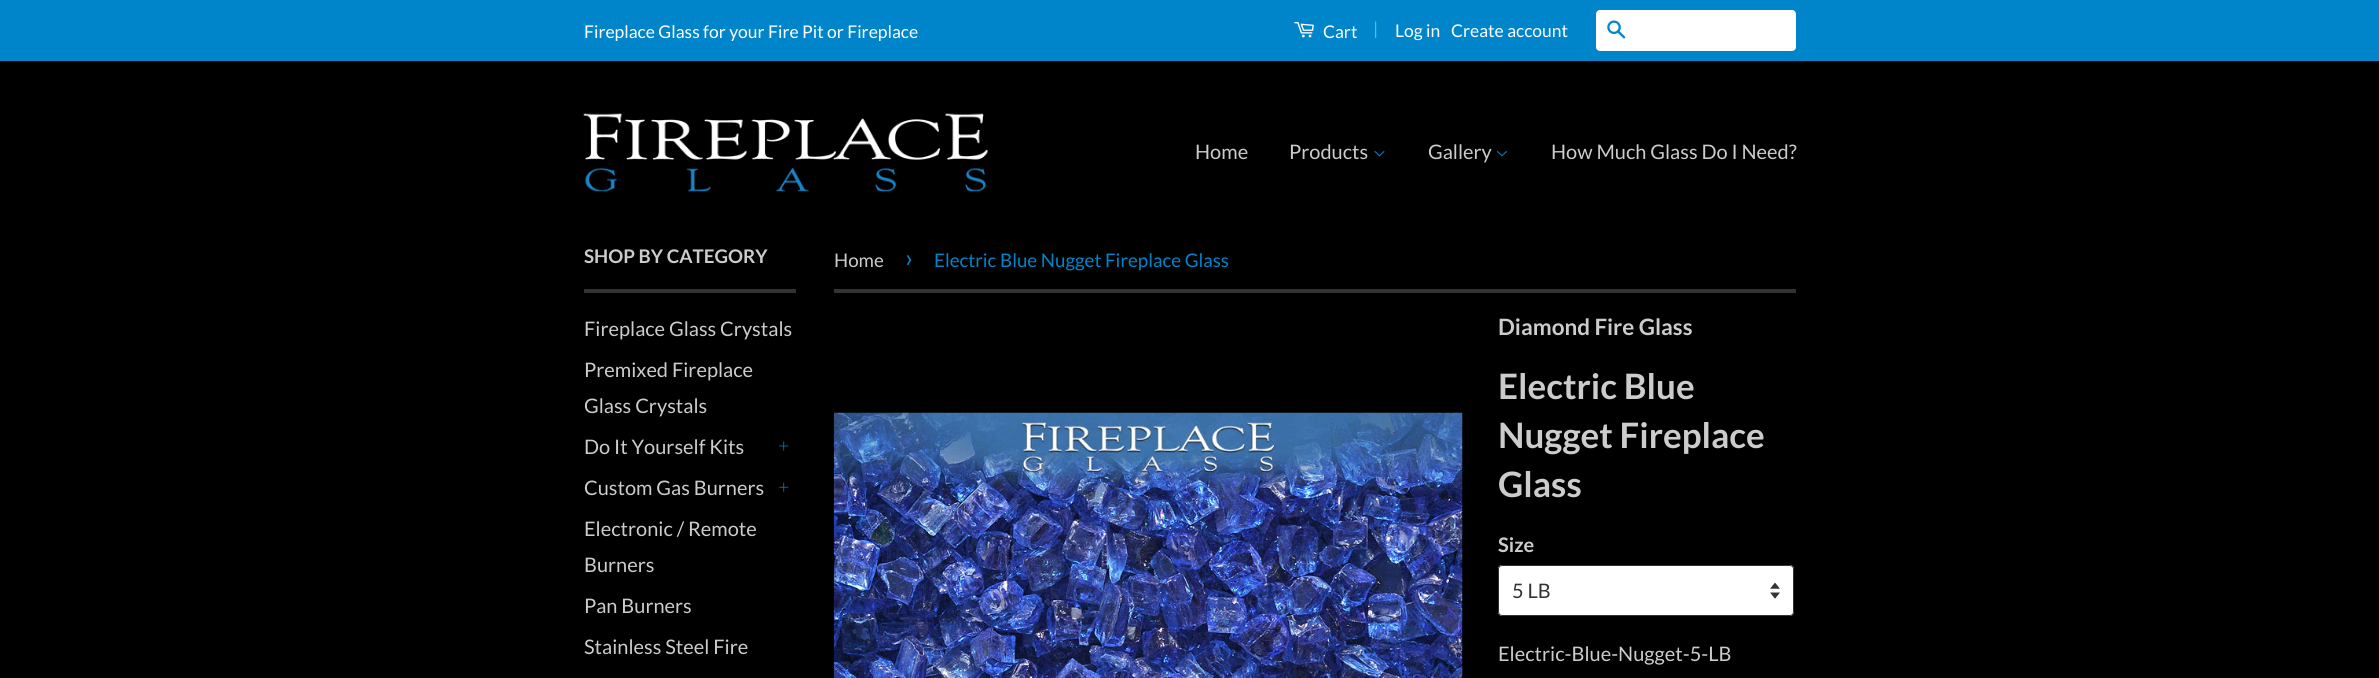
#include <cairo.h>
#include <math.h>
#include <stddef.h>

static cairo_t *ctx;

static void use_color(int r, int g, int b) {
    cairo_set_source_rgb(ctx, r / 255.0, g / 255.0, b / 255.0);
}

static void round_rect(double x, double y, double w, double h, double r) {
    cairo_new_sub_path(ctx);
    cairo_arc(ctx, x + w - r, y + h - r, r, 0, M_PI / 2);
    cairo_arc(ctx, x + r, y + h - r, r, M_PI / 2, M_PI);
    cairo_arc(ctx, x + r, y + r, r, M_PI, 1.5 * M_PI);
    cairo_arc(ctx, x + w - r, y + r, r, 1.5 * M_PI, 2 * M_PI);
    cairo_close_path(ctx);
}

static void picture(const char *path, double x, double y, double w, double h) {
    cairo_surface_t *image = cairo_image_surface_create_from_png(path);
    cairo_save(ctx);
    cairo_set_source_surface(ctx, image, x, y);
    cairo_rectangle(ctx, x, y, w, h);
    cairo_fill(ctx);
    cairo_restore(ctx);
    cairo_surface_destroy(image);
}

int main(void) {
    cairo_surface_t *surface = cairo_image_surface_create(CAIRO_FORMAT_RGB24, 2379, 678);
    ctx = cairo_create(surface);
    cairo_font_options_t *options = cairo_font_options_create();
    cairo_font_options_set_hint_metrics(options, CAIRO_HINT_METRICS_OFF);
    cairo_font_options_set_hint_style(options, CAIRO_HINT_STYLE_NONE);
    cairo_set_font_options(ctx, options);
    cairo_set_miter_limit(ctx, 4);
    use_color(0, 0, 0);
    cairo_paint(ctx);
    use_color(0, 133, 202);
    cairo_rectangle(ctx, 0, 0, 2379, 61);
    cairo_fill(ctx);
    cairo_select_font_face(ctx, "Lato", CAIRO_FONT_SLANT_NORMAL, CAIRO_FONT_WEIGHT_NORMAL);
    cairo_set_font_size(ctx, 17.5);
    use_color(255, 255, 255);
    cairo_move_to(ctx, 584, 38);
    cairo_show_text(ctx, "Fireplace Glass for your Fire Pit or Fireplace");
    picture("img1.png", 1294, 22, 20, 16);
    cairo_move_to(ctx, 1323, 38);
    cairo_show_text(ctx, "Cart");
    use_color(102, 182, 223);
    cairo_move_to(ctx, 1373, 35);
    cairo_show_text(ctx, "|");
    use_color(255, 255, 255);
    cairo_move_to(ctx, 1395, 37);
    cairo_show_text(ctx, "Log in");
    cairo_move_to(ctx, 1451, 37);
    cairo_show_text(ctx, "Create account");
    round_rect(1596, 10, 200, 41, 4);
    cairo_fill(ctx);
    picture("img2.png", 1607, 20, 19, 19);
    picture("img3.png", 583, 113, 405, 79);
    cairo_set_font_size(ctx, 20);
    use_color(204, 204, 204);
    cairo_move_to(ctx, 1195, 159);
    cairo_show_text(ctx, "Home");
    cairo_move_to(ctx, 1289, 159);
    cairo_show_text(ctx, "Products");
    picture("img4.png", 1374, 150, 11, 7);
    cairo_move_to(ctx, 1428, 159);
    cairo_show_text(ctx, "Gallery");
    picture("img5.png", 1497, 150, 10, 7);
    cairo_move_to(ctx, 1551, 159);
    cairo_show_text(ctx, "How Much Glass Do I Need?");
    use_color(51, 51, 51);
    cairo_rectangle(ctx, 584, 289, 212, 4);
    cairo_fill(ctx);
    cairo_select_font_face(ctx, "Lato", CAIRO_FONT_SLANT_NORMAL, CAIRO_FONT_WEIGHT_BOLD);
    cairo_set_font_size(ctx, 18.75);
    use_color(204, 204, 204);
    cairo_move_to(ctx, 584, 263);
    cairo_show_text(ctx, "SHOP BY CATEGORY");
    cairo_select_font_face(ctx, "Lato", CAIRO_FONT_SLANT_NORMAL, CAIRO_FONT_WEIGHT_NORMAL);
    cairo_set_font_size(ctx, 20);
    cairo_move_to(ctx, 584, 336);
    cairo_show_text(ctx, "Fireplace Glass Crystals");
    cairo_move_to(ctx, 584, 377);
    cairo_show_text(ctx, "Premixed Fireplace");
    cairo_move_to(ctx, 584, 413);
    cairo_show_text(ctx, "Glass Crystals");
    cairo_move_to(ctx, 584, 454);
    cairo_show_text(ctx, "Do It Yourself Kits");
    picture("img6.png", 779, 441, 10, 10);
    cairo_move_to(ctx, 584, 495);
    cairo_show_text(ctx, "Custom Gas Burners");
    picture("img7.png", 779, 482, 10, 10);
    cairo_move_to(ctx, 584, 536);
    cairo_show_text(ctx, "Electronic / Remote");
    cairo_move_to(ctx, 584, 572);
    cairo_show_text(ctx, "Burners");
    cairo_move_to(ctx, 584, 613);
    cairo_show_text(ctx, "Pan Burners");
    cairo_move_to(ctx, 584, 654);
    cairo_show_text(ctx, "Stainless Steel Fire");
    use_color(51, 51, 51);
    cairo_rectangle(ctx, 834, 289, 962, 4);
    cairo_fill(ctx);
    cairo_set_font_size(ctx, 18.75);
    use_color(204, 204, 204);
    cairo_move_to(ctx, 834, 267);
    cairo_show_text(ctx, "Home");
    cairo_set_font_size(ctx, 26);
    use_color(0, 133, 202);
    cairo_move_to(ctx, 905, 267);
    cairo_show_text(ctx, "›");
    cairo_set_font_size(ctx, 18.75);
    cairo_move_to(ctx, 934, 267);
    cairo_show_text(ctx, "Electric Blue Nugget Fireplace Glass");
    picture("img8.png", 833, 412, 630, 266);
    cairo_select_font_face(ctx, "Lato", CAIRO_FONT_SLANT_NORMAL, CAIRO_FONT_WEIGHT_BOLD);
    cairo_set_font_size(ctx, 22.5);
    use_color(204, 204, 204);
    cairo_move_to(ctx, 1498, 335);
    cairo_show_text(ctx, "Diamond Fire Glass");
    cairo_set_font_size(ctx, 35);
    cairo_move_to(ctx, 1498, 399);
    cairo_show_text(ctx, "Electric Blue");
    cairo_move_to(ctx, 1498, 448);
    cairo_show_text(ctx, "Nugget Fireplace");
    cairo_move_to(ctx, 1498, 497);
    cairo_show_text(ctx, "Glass");
    cairo_set_font_size(ctx, 20);
    cairo_move_to(ctx, 1498, 552);
    cairo_show_text(ctx, "Size");
    use_color(255, 255, 255);
    round_rect(1498, 565, 296, 51, 4);
    cairo_fill(ctx);
    picture("img9.png", 1770, 583, 10, 16);
    round_rect(1498.5, 565.5, 295, 50, 3.5);
    use_color(51, 51, 51);
    cairo_set_line_width(ctx, 1);
    cairo_stroke(ctx);
    cairo_select_font_face(ctx, "Lato", CAIRO_FONT_SLANT_NORMAL, CAIRO_FONT_WEIGHT_NORMAL);
    cairo_move_to(ctx, 1512, 598);
    cairo_show_text(ctx, "5 LB");
    use_color(204, 204, 204);
    cairo_move_to(ctx, 1498, 661);
    cairo_show_text(ctx, "Electric-Blue-Nugget-5-LB");
    cairo_surface_write_to_png(surface, "result.png");
    cairo_font_options_destroy(options);
    cairo_destroy(ctx);
    cairo_surface_destroy(surface);
    return 0;
}
